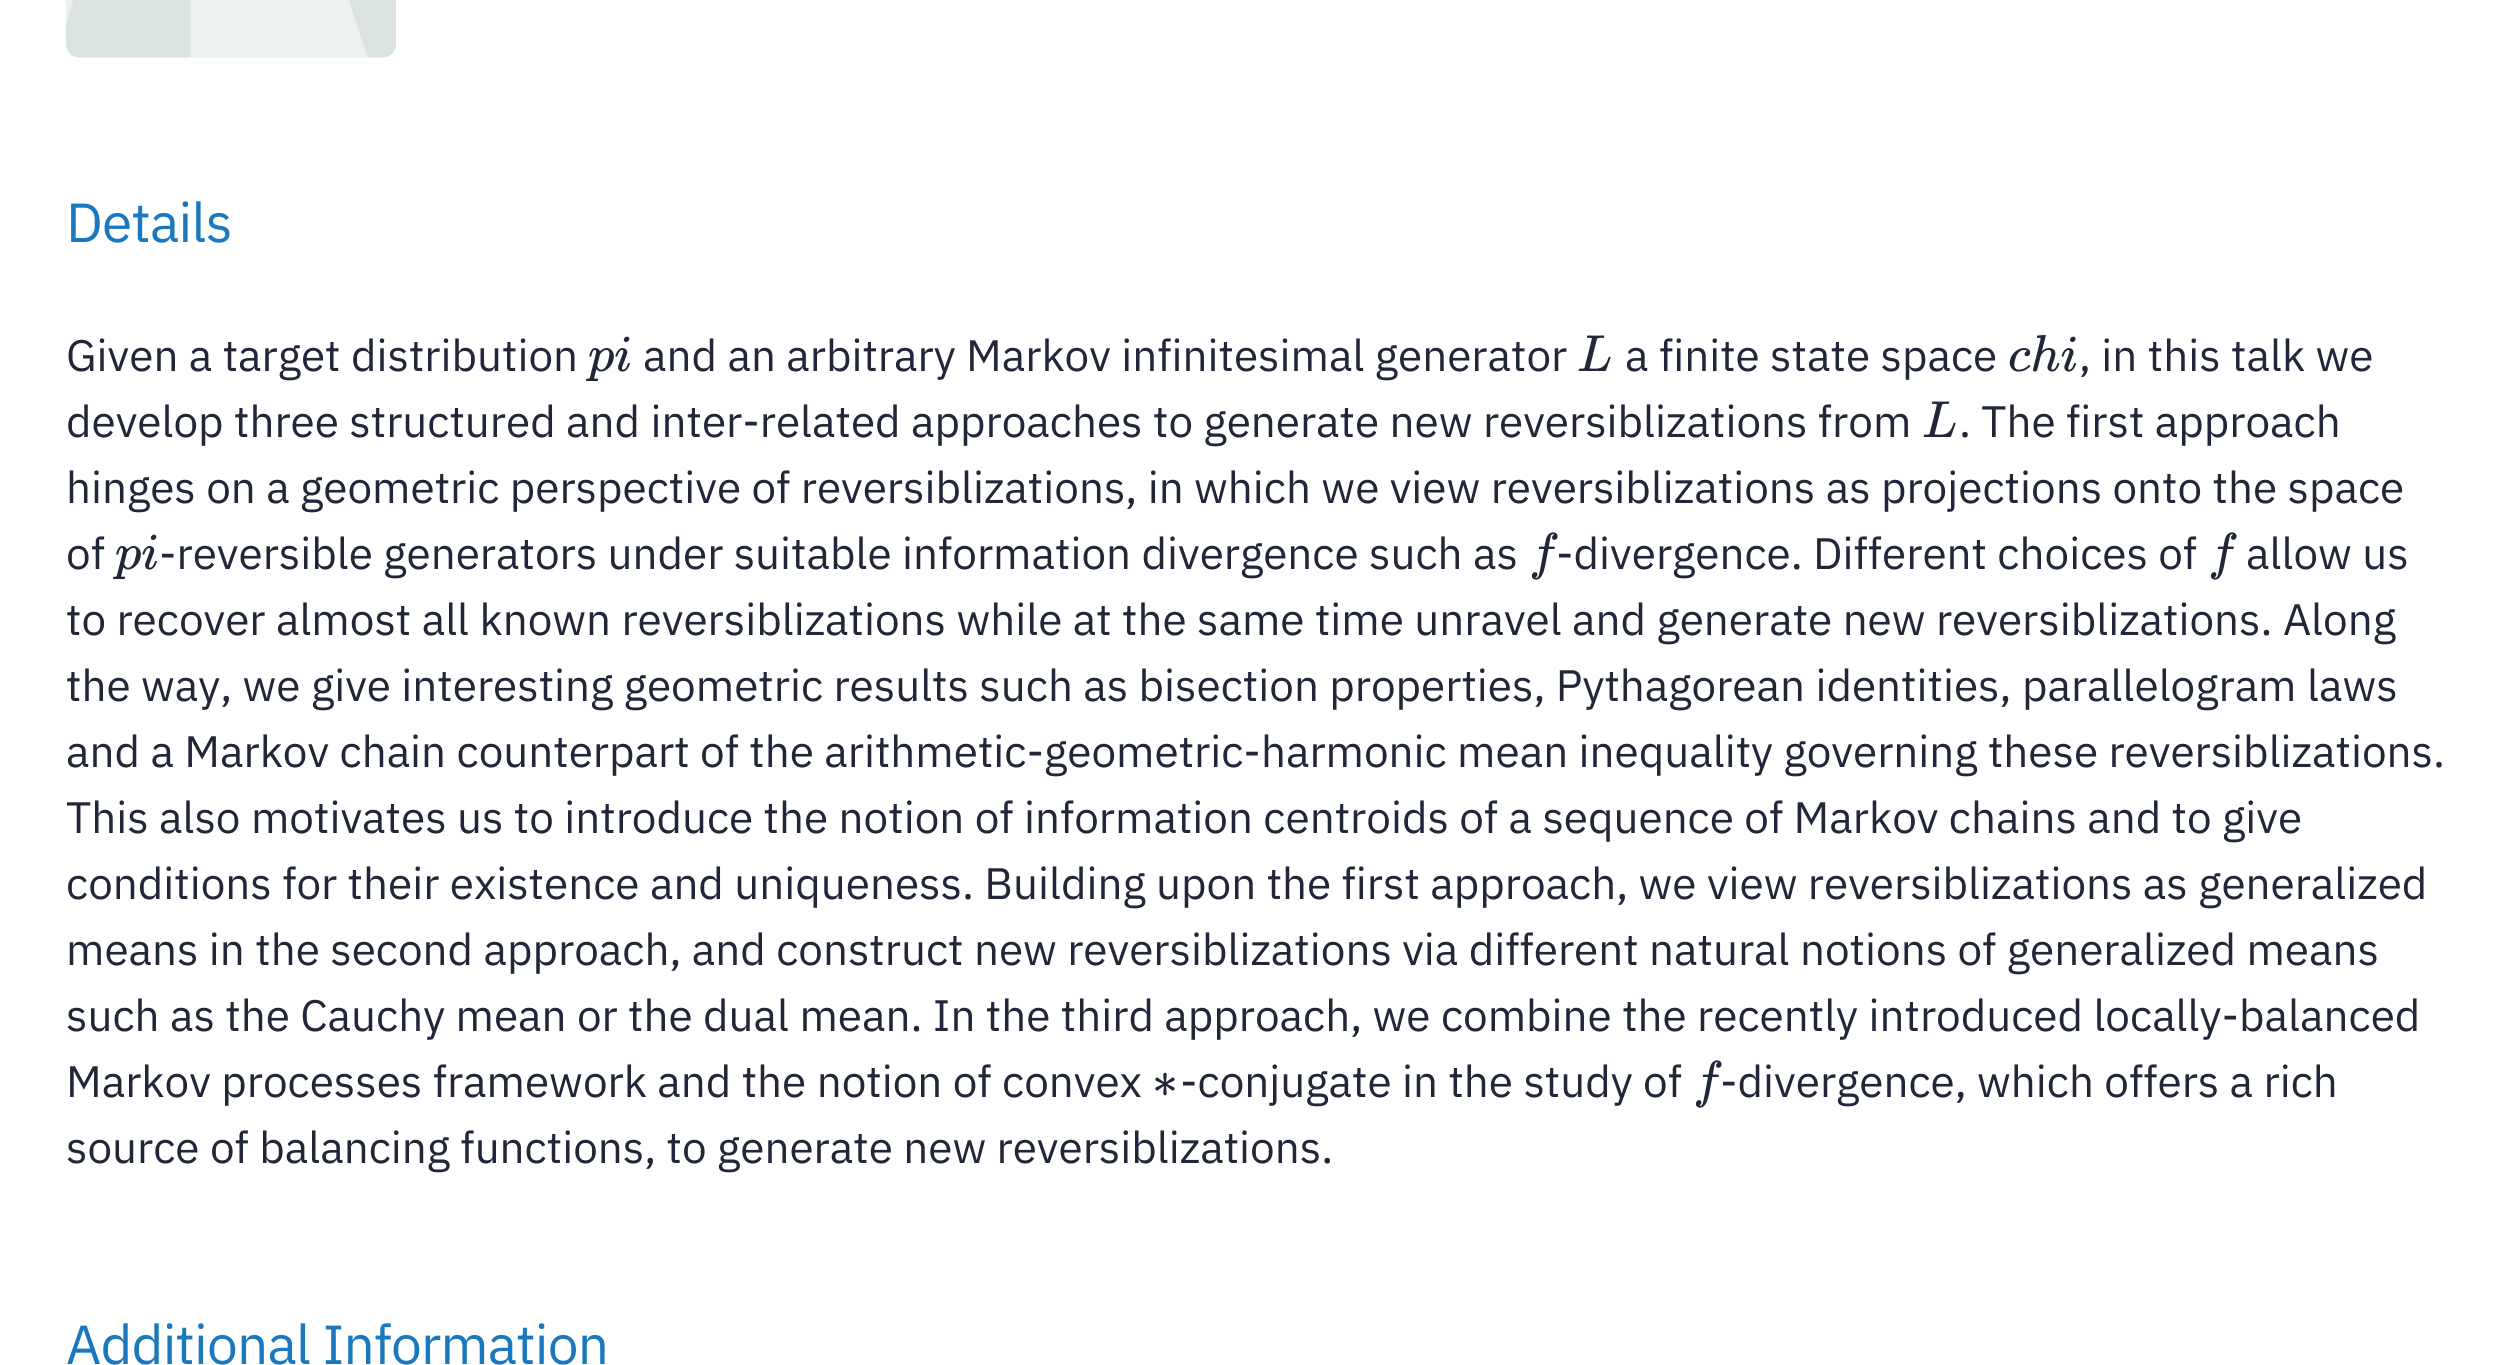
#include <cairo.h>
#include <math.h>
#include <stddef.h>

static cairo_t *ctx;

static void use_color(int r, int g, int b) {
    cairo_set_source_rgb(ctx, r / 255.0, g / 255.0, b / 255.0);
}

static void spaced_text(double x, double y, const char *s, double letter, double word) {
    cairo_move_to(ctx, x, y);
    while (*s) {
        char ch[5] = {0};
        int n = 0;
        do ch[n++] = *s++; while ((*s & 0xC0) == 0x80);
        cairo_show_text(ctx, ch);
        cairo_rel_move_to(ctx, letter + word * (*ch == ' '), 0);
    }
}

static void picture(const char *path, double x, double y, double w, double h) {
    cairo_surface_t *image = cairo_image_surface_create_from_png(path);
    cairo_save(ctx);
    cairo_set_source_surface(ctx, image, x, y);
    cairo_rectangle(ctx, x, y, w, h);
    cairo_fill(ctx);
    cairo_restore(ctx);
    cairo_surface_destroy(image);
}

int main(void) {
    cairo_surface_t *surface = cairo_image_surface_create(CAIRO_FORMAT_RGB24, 2515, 1365);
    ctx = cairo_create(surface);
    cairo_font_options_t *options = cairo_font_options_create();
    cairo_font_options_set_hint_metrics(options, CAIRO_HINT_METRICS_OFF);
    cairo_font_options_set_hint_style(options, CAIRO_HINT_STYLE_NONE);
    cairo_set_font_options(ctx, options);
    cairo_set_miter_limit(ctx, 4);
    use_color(255, 255, 255);
    cairo_paint(ctx);
    picture("img1.png", 66, 0, 330, 58);
    cairo_select_font_face(ctx, "IBM Plex Sans", CAIRO_FONT_SLANT_NORMAL, CAIRO_FONT_WEIGHT_NORMAL);
    cairo_set_font_size(ctx, 55);
    use_color(25, 120, 190);
    spaced_text(66, 242, "Details", -0.8, 0);
    cairo_set_font_size(ctx, 44);
    use_color(33, 39, 56);
    cairo_move_to(ctx, 66, 371);
    cairo_show_text(ctx, "Given a target distribution");
    cairo_select_font_face(ctx, "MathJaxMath", CAIRO_FONT_SLANT_ITALIC, CAIRO_FONT_WEIGHT_NORMAL);
    cairo_set_font_size(ctx, 52);
    cairo_move_to(ctx, 588, 371);
    cairo_show_text(ctx, "pi");
    cairo_select_font_face(ctx, "IBM Plex Sans", CAIRO_FONT_SLANT_NORMAL, CAIRO_FONT_WEIGHT_NORMAL);
    cairo_set_font_size(ctx, 44);
    cairo_move_to(ctx, 643, 371);
    cairo_show_text(ctx, "and an arbitrary Markov infinitesimal generator");
    cairo_select_font_face(ctx, "MathJaxMath", CAIRO_FONT_SLANT_ITALIC, CAIRO_FONT_WEIGHT_NORMAL);
    cairo_set_font_size(ctx, 52);
    cairo_move_to(ctx, 1577, 371);
    cairo_show_text(ctx, "L");
    cairo_select_font_face(ctx, "IBM Plex Sans", CAIRO_FONT_SLANT_NORMAL, CAIRO_FONT_WEIGHT_NORMAL);
    cairo_set_font_size(ctx, 44);
    cairo_move_to(ctx, 1625, 371);
    cairo_show_text(ctx, "a finite state space");
    cairo_select_font_face(ctx, "MathJaxMath", CAIRO_FONT_SLANT_ITALIC, CAIRO_FONT_WEIGHT_NORMAL);
    cairo_set_font_size(ctx, 52);
    cairo_move_to(ctx, 2008, 371);
    cairo_show_text(ctx, "chi");
    cairo_select_font_face(ctx, "IBM Plex Sans", CAIRO_FONT_SLANT_NORMAL, CAIRO_FONT_WEIGHT_NORMAL);
    cairo_set_font_size(ctx, 44);
    cairo_move_to(ctx, 2079, 371);
    cairo_show_text(ctx, ", in this talk we");
    cairo_move_to(ctx, 66, 437);
    cairo_show_text(ctx, "develop three structured and inter-related approaches to generate new reversiblizations from");
    cairo_select_font_face(ctx, "MathJaxMath", CAIRO_FONT_SLANT_ITALIC, CAIRO_FONT_WEIGHT_NORMAL);
    cairo_set_font_size(ctx, 52);
    cairo_move_to(ctx, 1922, 437);
    cairo_show_text(ctx, "L");
    cairo_select_font_face(ctx, "IBM Plex Sans", CAIRO_FONT_SLANT_NORMAL, CAIRO_FONT_WEIGHT_NORMAL);
    cairo_set_font_size(ctx, 44);
    cairo_move_to(ctx, 1959, 437);
    cairo_show_text(ctx, ". The first approach");
    cairo_move_to(ctx, 66, 503);
    cairo_show_text(ctx, "hinges on a geometric perspective of reversiblizations, in which we view reversiblizations as projections onto the space");
    cairo_move_to(ctx, 66, 569);
    cairo_show_text(ctx, "of");
    cairo_select_font_face(ctx, "MathJaxMath", CAIRO_FONT_SLANT_ITALIC, CAIRO_FONT_WEIGHT_NORMAL);
    cairo_set_font_size(ctx, 52);
    cairo_move_to(ctx, 115, 569);
    cairo_show_text(ctx, "pi");
    cairo_select_font_face(ctx, "IBM Plex Sans", CAIRO_FONT_SLANT_NORMAL, CAIRO_FONT_WEIGHT_NORMAL);
    cairo_set_font_size(ctx, 44);
    cairo_move_to(ctx, 159, 569);
    cairo_show_text(ctx, "-reversible generators under suitable information divergence such as");
    cairo_select_font_face(ctx, "MathJaxMath", CAIRO_FONT_SLANT_ITALIC, CAIRO_FONT_WEIGHT_NORMAL);
    cairo_set_font_size(ctx, 52);
    cairo_move_to(ctx, 1529, 569);
    cairo_show_text(ctx, "f");
    cairo_select_font_face(ctx, "IBM Plex Sans", CAIRO_FONT_SLANT_NORMAL, CAIRO_FONT_WEIGHT_NORMAL);
    cairo_set_font_size(ctx, 44);
    cairo_move_to(ctx, 1556, 569);
    cairo_show_text(ctx, "-divergence. Different choices of");
    cairo_select_font_face(ctx, "MathJaxMath", CAIRO_FONT_SLANT_ITALIC, CAIRO_FONT_WEIGHT_NORMAL);
    cairo_set_font_size(ctx, 52);
    cairo_move_to(ctx, 2208, 569);
    cairo_show_text(ctx, "f");
    cairo_select_font_face(ctx, "IBM Plex Sans", CAIRO_FONT_SLANT_NORMAL, CAIRO_FONT_WEIGHT_NORMAL);
    cairo_set_font_size(ctx, 44);
    cairo_move_to(ctx, 2246, 569);
    cairo_show_text(ctx, "allow us");
    cairo_move_to(ctx, 66, 635);
    cairo_show_text(ctx, "to recover almost all known reversiblizations while at the same time unravel and generate new reversiblizations. Along");
    cairo_move_to(ctx, 66, 701);
    cairo_show_text(ctx, "the way, we give interesting geometric results such as bisection properties, Pythagorean identities, parallelogram laws");
    cairo_move_to(ctx, 66, 767);
    cairo_show_text(ctx, "and a Markov chain counterpart of the arithmetic-geometric-harmonic mean inequality governing these reversiblizations.");
    cairo_move_to(ctx, 66, 833);
    cairo_show_text(ctx, "This also motivates us to introduce the notion of information centroids of a sequence of Markov chains and to give");
    cairo_move_to(ctx, 66, 899);
    cairo_show_text(ctx, "conditions for their existence and uniqueness. Building upon the first approach, we view reversiblizations as generalized");
    cairo_move_to(ctx, 66, 965);
    cairo_show_text(ctx, "means in the second approach, and construct new reversiblizations via different natural notions of generalized means");
    cairo_move_to(ctx, 66, 1031);
    cairo_show_text(ctx, "such as the Cauchy mean or the dual mean. In the third approach, we combine the recently introduced locally-balanced");
    cairo_move_to(ctx, 66, 1097);
    cairo_show_text(ctx, "Markov processes framework and the notion of convex");
    cairo_select_font_face(ctx, "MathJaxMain", CAIRO_FONT_SLANT_NORMAL, CAIRO_FONT_WEIGHT_NORMAL);
    cairo_set_font_size(ctx, 52);
    cairo_move_to(ctx, 1152, 1097);
    cairo_show_text(ctx, "∗");
    cairo_select_font_face(ctx, "IBM Plex Sans", CAIRO_FONT_SLANT_NORMAL, CAIRO_FONT_WEIGHT_NORMAL);
    cairo_set_font_size(ctx, 44);
    cairo_move_to(ctx, 1180, 1097);
    cairo_show_text(ctx, "-conjugate in the study of");
    cairo_select_font_face(ctx, "MathJaxMath", CAIRO_FONT_SLANT_ITALIC, CAIRO_FONT_WEIGHT_NORMAL);
    cairo_set_font_size(ctx, 52);
    cairo_move_to(ctx, 1693, 1097);
    cairo_show_text(ctx, "f");
    cairo_select_font_face(ctx, "IBM Plex Sans", CAIRO_FONT_SLANT_NORMAL, CAIRO_FONT_WEIGHT_NORMAL);
    cairo_set_font_size(ctx, 44);
    cairo_move_to(ctx, 1720, 1097);
    cairo_show_text(ctx, "-divergence, which offers a rich");
    cairo_move_to(ctx, 66, 1163);
    cairo_show_text(ctx, "source of balancing functions, to generate new reversiblizations.");
    cairo_set_font_size(ctx, 55);
    use_color(25, 120, 190);
    spaced_text(66, 1364, "Additional Information", -0.8, 0);
    cairo_surface_write_to_png(surface, "result.png");
    cairo_font_options_destroy(options);
    cairo_destroy(ctx);
    cairo_surface_destroy(surface);
    return 0;
}
